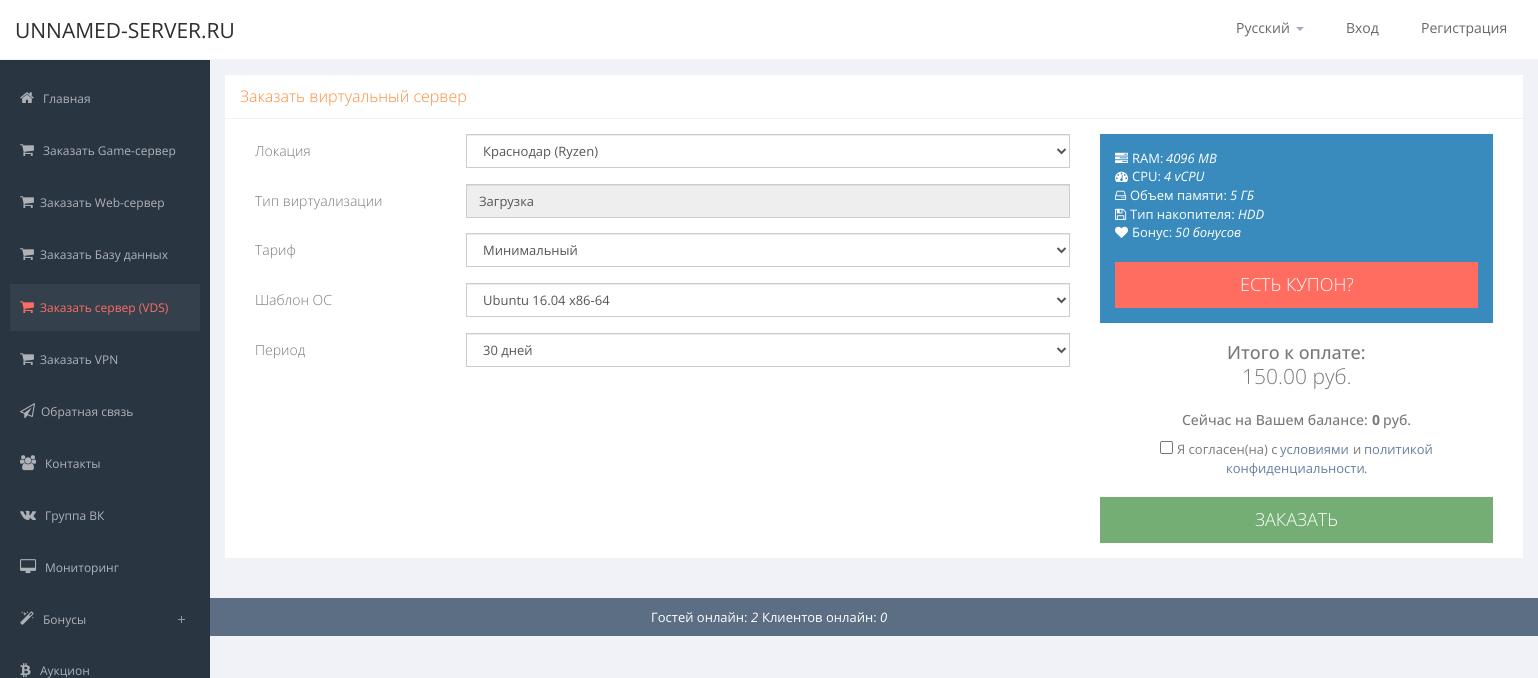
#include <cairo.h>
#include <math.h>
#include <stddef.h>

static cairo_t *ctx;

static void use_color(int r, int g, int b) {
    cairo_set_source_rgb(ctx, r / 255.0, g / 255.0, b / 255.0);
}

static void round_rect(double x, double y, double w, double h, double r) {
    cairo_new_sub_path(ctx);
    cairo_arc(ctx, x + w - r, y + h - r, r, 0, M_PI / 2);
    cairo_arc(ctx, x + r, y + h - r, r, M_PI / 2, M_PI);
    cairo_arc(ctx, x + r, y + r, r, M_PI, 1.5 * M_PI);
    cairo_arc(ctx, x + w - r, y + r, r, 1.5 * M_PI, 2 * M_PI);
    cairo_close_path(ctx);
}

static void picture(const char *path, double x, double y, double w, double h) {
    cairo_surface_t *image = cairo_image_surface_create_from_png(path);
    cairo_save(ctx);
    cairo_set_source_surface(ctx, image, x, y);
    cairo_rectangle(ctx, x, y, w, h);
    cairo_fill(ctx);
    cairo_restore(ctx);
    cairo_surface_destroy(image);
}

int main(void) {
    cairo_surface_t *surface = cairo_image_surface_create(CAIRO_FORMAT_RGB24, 1538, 678);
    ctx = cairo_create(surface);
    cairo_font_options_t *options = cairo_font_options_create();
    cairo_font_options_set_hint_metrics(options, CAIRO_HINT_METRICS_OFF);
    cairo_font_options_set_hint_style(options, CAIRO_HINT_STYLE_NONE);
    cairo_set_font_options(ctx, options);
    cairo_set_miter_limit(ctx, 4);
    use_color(241, 242, 247);
    cairo_paint(ctx);
    use_color(255, 255, 255);
    cairo_rectangle(ctx, 0, 0, 1538, 59);
    cairo_fill(ctx);
    cairo_select_font_face(ctx, "Open Sans", CAIRO_FONT_SLANT_NORMAL, CAIRO_FONT_WEIGHT_NORMAL);
    cairo_set_font_size(ctx, 21);
    use_color(46, 46, 46);
    cairo_move_to(ctx, 15, 38);
    cairo_show_text(ctx, "UNNAMED-SERVER.RU");
    cairo_set_font_size(ctx, 14);
    use_color(102, 102, 102);
    cairo_move_to(ctx, 1236, 33);
    cairo_show_text(ctx, "Русский");
    use_color(164, 170, 186);
    cairo_new_path(ctx);
    cairo_move_to(ctx, 1296, 27);
    cairo_line_to(ctx, 1304, 27);
    cairo_line_to(ctx, 1300, 31);
    cairo_close_path(ctx);
    cairo_fill(ctx);
    use_color(102, 102, 102);
    cairo_move_to(ctx, 1346, 33);
    cairo_show_text(ctx, "Вход");
    cairo_move_to(ctx, 1421, 33);
    cairo_show_text(ctx, "Регистрация");
    use_color(42, 53, 66);
    cairo_rectangle(ctx, 0, 60, 210, 618);
    cairo_fill(ctx);
    picture("img1.png", 20, 92, 14, 11);
    cairo_set_font_size(ctx, 12);
    use_color(174, 178, 183);
    cairo_move_to(ctx, 43, 103);
    cairo_show_text(ctx, "Главная");
    picture("img2.png", 20, 144, 14, 12);
    cairo_move_to(ctx, 43, 155);
    cairo_show_text(ctx, "Заказать Game-сервер");
    picture("img2.png", 20, 196, 14, 12);
    cairo_move_to(ctx, 40, 207);
    cairo_show_text(ctx, "Заказать Web-сервер");
    picture("img2.png", 20, 248, 14, 12);
    cairo_move_to(ctx, 40, 259);
    cairo_show_text(ctx, "Заказать Базу данных");
    use_color(53, 64, 77);
    cairo_rectangle(ctx, 10, 284, 190, 47);
    cairo_fill(ctx);
    picture("img3.png", 20, 301, 14, 13);
    use_color(255, 108, 96);
    cairo_move_to(ctx, 40, 312);
    cairo_show_text(ctx, "Заказать сервер (VDS)");
    picture("img2.png", 20, 353, 14, 12);
    use_color(174, 178, 183);
    cairo_move_to(ctx, 40, 364);
    cairo_show_text(ctx, "Заказать VPN");
    picture("img4.png", 20, 403, 15, 16);
    cairo_move_to(ctx, 41, 416);
    cairo_show_text(ctx, "Обратная связь");
    picture("img5.png", 20, 455, 17, 16);
    cairo_move_to(ctx, 45, 468);
    cairo_show_text(ctx, "Контакты");
    picture("img6.png", 20, 510, 16, 10);
    cairo_move_to(ctx, 45, 520);
    cairo_show_text(ctx, "Группа ВК");
    picture("img7.png", 20, 559, 17, 15);
    cairo_move_to(ctx, 45, 572);
    cairo_show_text(ctx, "Мониторинг");
    picture("img8.png", 20, 611, 14, 14);
    cairo_move_to(ctx, 43, 624);
    cairo_show_text(ctx, "Бонусы");
    picture("img9.png", 178, 616, 7, 7);
    picture("img10.png", 20, 663, 11, 15);
    cairo_move_to(ctx, 40, 675);
    cairo_show_text(ctx, "Аукцион");
    use_color(255, 255, 255);
    cairo_rectangle(ctx, 225, 75, 1298, 483);
    cairo_fill(ctx);
    use_color(239, 242, 247);
    cairo_rectangle(ctx, 225, 118, 1298, 1);
    cairo_fill(ctx);
    cairo_select_font_face(ctx, "Open Sans Light", CAIRO_FONT_SLANT_NORMAL, CAIRO_FONT_WEIGHT_NORMAL);
    cairo_set_font_size(ctx, 16);
    use_color(254, 139, 55);
    cairo_move_to(ctx, 240, 102);
    cairo_show_text(ctx, "Заказать виртуальный сервер");
    cairo_set_font_size(ctx, 14);
    use_color(121, 121, 121);
    cairo_move_to(ctx, 255, 156);
    cairo_show_text(ctx, "Локация");
    use_color(236, 236, 236);
    cairo_rectangle(ctx, 467, 135, 602, 1);
    cairo_fill(ctx);
    cairo_rectangle(ctx, 466.5, 134.5, 603, 33);
    use_color(204, 204, 204);
    cairo_set_line_width(ctx, 1);
    cairo_stroke(ctx);
    cairo_new_path(ctx);
    cairo_move_to(ctx, 1057.5, 149);
    cairo_line_to(ctx, 1061.5, 153);
    cairo_line_to(ctx, 1065.5, 149);
    use_color(85, 85, 85);
    cairo_set_line_width(ctx, 2);
    cairo_stroke(ctx);
    cairo_select_font_face(ctx, "Open Sans", CAIRO_FONT_SLANT_NORMAL, CAIRO_FONT_WEIGHT_NORMAL);
    cairo_set_font_size(ctx, 13);
    cairo_move_to(ctx, 483, 156);
    cairo_show_text(ctx, "Краснодар (Ryzen)");
    cairo_select_font_face(ctx, "Open Sans Light", CAIRO_FONT_SLANT_NORMAL, CAIRO_FONT_WEIGHT_NORMAL);
    cairo_set_font_size(ctx, 14);
    use_color(121, 121, 121);
    cairo_move_to(ctx, 255, 206);
    cairo_show_text(ctx, "Тип виртуализации");
    use_color(238, 238, 238);
    cairo_rectangle(ctx, 467, 186, 602, 31);
    cairo_fill(ctx);
    use_color(220, 220, 220);
    cairo_rectangle(ctx, 467, 185, 602, 1);
    cairo_fill(ctx);
    cairo_rectangle(ctx, 466.5, 184.5, 603, 33);
    use_color(204, 204, 204);
    cairo_set_line_width(ctx, 1);
    cairo_stroke(ctx);
    cairo_select_font_face(ctx, "Open Sans", CAIRO_FONT_SLANT_NORMAL, CAIRO_FONT_WEIGHT_NORMAL);
    cairo_set_font_size(ctx, 13);
    use_color(85, 85, 85);
    cairo_move_to(ctx, 479, 206);
    cairo_show_text(ctx, "Загрузка");
    cairo_select_font_face(ctx, "Open Sans Light", CAIRO_FONT_SLANT_NORMAL, CAIRO_FONT_WEIGHT_NORMAL);
    cairo_set_font_size(ctx, 14);
    use_color(121, 121, 121);
    cairo_move_to(ctx, 255, 255);
    cairo_show_text(ctx, "Тариф");
    use_color(236, 236, 236);
    cairo_rectangle(ctx, 467, 234, 602, 1);
    cairo_fill(ctx);
    cairo_rectangle(ctx, 466.5, 233.5, 603, 33);
    use_color(204, 204, 204);
    cairo_stroke(ctx);
    cairo_new_path(ctx);
    cairo_move_to(ctx, 1057.5, 248);
    cairo_line_to(ctx, 1061.5, 252);
    cairo_line_to(ctx, 1065.5, 248);
    use_color(85, 85, 85);
    cairo_set_line_width(ctx, 2);
    cairo_stroke(ctx);
    cairo_select_font_face(ctx, "Open Sans", CAIRO_FONT_SLANT_NORMAL, CAIRO_FONT_WEIGHT_NORMAL);
    cairo_set_font_size(ctx, 13);
    cairo_move_to(ctx, 483, 255);
    cairo_show_text(ctx, "Минимальный");
    cairo_select_font_face(ctx, "Open Sans Light", CAIRO_FONT_SLANT_NORMAL, CAIRO_FONT_WEIGHT_NORMAL);
    cairo_set_font_size(ctx, 14);
    use_color(121, 121, 121);
    cairo_move_to(ctx, 255, 305);
    cairo_show_text(ctx, "Шаблон ОС");
    use_color(236, 236, 236);
    cairo_rectangle(ctx, 467, 284, 602, 1);
    cairo_fill(ctx);
    cairo_rectangle(ctx, 466.5, 283.5, 603, 33);
    use_color(204, 204, 204);
    cairo_set_line_width(ctx, 1);
    cairo_stroke(ctx);
    cairo_new_path(ctx);
    cairo_move_to(ctx, 1057.5, 298);
    cairo_line_to(ctx, 1061.5, 302);
    cairo_line_to(ctx, 1065.5, 298);
    use_color(85, 85, 85);
    cairo_set_line_width(ctx, 2);
    cairo_stroke(ctx);
    cairo_select_font_face(ctx, "Open Sans", CAIRO_FONT_SLANT_NORMAL, CAIRO_FONT_WEIGHT_NORMAL);
    cairo_set_font_size(ctx, 13);
    cairo_move_to(ctx, 483, 305);
    cairo_show_text(ctx, "Ubuntu 16.04 x86-64");
    cairo_select_font_face(ctx, "Open Sans Light", CAIRO_FONT_SLANT_NORMAL, CAIRO_FONT_WEIGHT_NORMAL);
    cairo_set_font_size(ctx, 14);
    use_color(121, 121, 121);
    cairo_move_to(ctx, 255, 355);
    cairo_show_text(ctx, "Период");
    use_color(236, 236, 236);
    cairo_rectangle(ctx, 467, 334, 602, 1);
    cairo_fill(ctx);
    cairo_rectangle(ctx, 466.5, 333.5, 603, 33);
    use_color(204, 204, 204);
    cairo_set_line_width(ctx, 1);
    cairo_stroke(ctx);
    cairo_new_path(ctx);
    cairo_move_to(ctx, 1057.5, 348);
    cairo_line_to(ctx, 1061.5, 352);
    cairo_line_to(ctx, 1065.5, 348);
    use_color(85, 85, 85);
    cairo_set_line_width(ctx, 2);
    cairo_stroke(ctx);
    cairo_select_font_face(ctx, "Open Sans", CAIRO_FONT_SLANT_NORMAL, CAIRO_FONT_WEIGHT_NORMAL);
    cairo_set_font_size(ctx, 13);
    cairo_move_to(ctx, 483, 355);
    cairo_show_text(ctx, "30 дней");
    use_color(57, 138, 189);
    cairo_rectangle(ctx, 1100, 134, 393, 189);
    cairo_fill(ctx);
    picture("img11.png", 1115, 152, 13, 11);
    use_color(255, 255, 255);
    cairo_move_to(ctx, 1132, 163);
    cairo_show_text(ctx, "RAM:");
    cairo_select_font_face(ctx, "Open Sans", CAIRO_FONT_SLANT_ITALIC, CAIRO_FONT_WEIGHT_NORMAL);
    cairo_move_to(ctx, 1166, 163);
    cairo_show_text(ctx, "4096 MB");
    picture("img12.png", 1115, 171, 13, 11);
    cairo_select_font_face(ctx, "Open Sans", CAIRO_FONT_SLANT_NORMAL, CAIRO_FONT_WEIGHT_NORMAL);
    cairo_move_to(ctx, 1132, 181);
    cairo_show_text(ctx, "CPU:");
    cairo_select_font_face(ctx, "Open Sans", CAIRO_FONT_SLANT_ITALIC, CAIRO_FONT_WEIGHT_NORMAL);
    cairo_move_to(ctx, 1164, 181);
    cairo_show_text(ctx, "4 vCPU");
    picture("img13.png", 1115, 190, 12, 10);
    cairo_select_font_face(ctx, "Open Sans", CAIRO_FONT_SLANT_NORMAL, CAIRO_FONT_WEIGHT_NORMAL);
    cairo_move_to(ctx, 1130, 200);
    cairo_show_text(ctx, "Объем памяти:");
    cairo_select_font_face(ctx, "Open Sans", CAIRO_FONT_SLANT_ITALIC, CAIRO_FONT_WEIGHT_NORMAL);
    cairo_move_to(ctx, 1230, 200);
    cairo_show_text(ctx, "5 ГБ");
    picture("img14.png", 1115, 208, 12, 12);
    cairo_select_font_face(ctx, "Open Sans", CAIRO_FONT_SLANT_NORMAL, CAIRO_FONT_WEIGHT_NORMAL);
    cairo_move_to(ctx, 1130, 219);
    cairo_show_text(ctx, "Тип накопителя:");
    cairo_select_font_face(ctx, "Open Sans", CAIRO_FONT_SLANT_ITALIC, CAIRO_FONT_WEIGHT_NORMAL);
    cairo_move_to(ctx, 1238, 219);
    cairo_show_text(ctx, "HDD");
    picture("img15.png", 1115, 226, 13, 12);
    cairo_select_font_face(ctx, "Open Sans", CAIRO_FONT_SLANT_NORMAL, CAIRO_FONT_WEIGHT_NORMAL);
    cairo_move_to(ctx, 1132, 237);
    cairo_show_text(ctx, "Бонус:");
    cairo_select_font_face(ctx, "Open Sans", CAIRO_FONT_SLANT_ITALIC, CAIRO_FONT_WEIGHT_NORMAL);
    cairo_move_to(ctx, 1175, 237);
    cairo_show_text(ctx, "50 бонусов");
    use_color(255, 108, 96);
    cairo_rectangle(ctx, 1115, 262, 363, 46);
    cairo_fill(ctx);
    cairo_select_font_face(ctx, "Open Sans Light", CAIRO_FONT_SLANT_NORMAL, CAIRO_FONT_WEIGHT_NORMAL);
    cairo_set_font_size(ctx, 18);
    use_color(255, 255, 255);
    cairo_move_to(ctx, 1240, 291);
    cairo_show_text(ctx, "ЕСТЬ КУПОН?");
    cairo_select_font_face(ctx, "Open Sans Medium", CAIRO_FONT_SLANT_NORMAL, CAIRO_FONT_WEIGHT_NORMAL);
    use_color(121, 121, 121);
    cairo_move_to(ctx, 1227, 359);
    cairo_show_text(ctx, "Итого к оплате:");
    cairo_select_font_face(ctx, "Open Sans Light", CAIRO_FONT_SLANT_NORMAL, CAIRO_FONT_WEIGHT_NORMAL);
    cairo_set_font_size(ctx, 21);
    cairo_move_to(ctx, 1242, 384);
    cairo_show_text(ctx, "150.00 руб.");
    cairo_select_font_face(ctx, "Open Sans Medium", CAIRO_FONT_SLANT_NORMAL, CAIRO_FONT_WEIGHT_NORMAL);
    cairo_set_font_size(ctx, 14);
    cairo_move_to(ctx, 1182, 425);
    cairo_show_text(ctx, "Сейчас на Вашем балансе:");
    cairo_select_font_face(ctx, "Open Sans", CAIRO_FONT_SLANT_NORMAL, CAIRO_FONT_WEIGHT_BOLD);
    cairo_move_to(ctx, 1372, 425);
    cairo_show_text(ctx, "0");
    cairo_select_font_face(ctx, "Open Sans Medium", CAIRO_FONT_SLANT_NORMAL, CAIRO_FONT_WEIGHT_NORMAL);
    cairo_move_to(ctx, 1383, 425);
    cairo_show_text(ctx, "руб.");
    round_rect(1160.5, 441.5, 12, 12, 1.5);
    use_color(118, 118, 118);
    cairo_set_line_width(ctx, 1);
    cairo_stroke(ctx);
    cairo_select_font_face(ctx, "Open Sans", CAIRO_FONT_SLANT_NORMAL, CAIRO_FONT_WEIGHT_NORMAL);
    cairo_set_font_size(ctx, 13);
    use_color(121, 121, 121);
    cairo_move_to(ctx, 1177, 454);
    cairo_show_text(ctx, "Я согласен(на) с");
    use_color(102, 127, 160);
    cairo_move_to(ctx, 1280, 454);
    cairo_show_text(ctx, "условиями");
    use_color(121, 121, 121);
    cairo_move_to(ctx, 1353, 454);
    cairo_show_text(ctx, "и");
    use_color(102, 127, 160);
    cairo_move_to(ctx, 1364, 454);
    cairo_show_text(ctx, "политикой");
    cairo_move_to(ctx, 1226, 473);
    cairo_show_text(ctx, "конфиденциальности");
    use_color(121, 121, 121);
    cairo_move_to(ctx, 1364, 473);
    cairo_show_text(ctx, ".");
    use_color(116, 174, 116);
    cairo_rectangle(ctx, 1100, 497, 393, 46);
    cairo_fill(ctx);
    cairo_select_font_face(ctx, "Open Sans Light", CAIRO_FONT_SLANT_NORMAL, CAIRO_FONT_WEIGHT_NORMAL);
    cairo_set_font_size(ctx, 18);
    use_color(255, 255, 255);
    cairo_move_to(ctx, 1255, 526);
    cairo_show_text(ctx, "ЗАКАЗАТЬ");
    use_color(91, 110, 132);
    cairo_rectangle(ctx, 210, 598, 1328, 38);
    cairo_fill(ctx);
    cairo_select_font_face(ctx, "Open Sans", CAIRO_FONT_SLANT_NORMAL, CAIRO_FONT_WEIGHT_NORMAL);
    cairo_set_font_size(ctx, 13);
    use_color(255, 255, 255);
    cairo_move_to(ctx, 651, 622);
    cairo_show_text(ctx, "Гостей онлайн:");
    cairo_select_font_face(ctx, "Open Sans", CAIRO_FONT_SLANT_ITALIC, CAIRO_FONT_WEIGHT_NORMAL);
    cairo_move_to(ctx, 751, 622);
    cairo_show_text(ctx, "2");
    cairo_select_font_face(ctx, "Open Sans", CAIRO_FONT_SLANT_NORMAL, CAIRO_FONT_WEIGHT_NORMAL);
    cairo_move_to(ctx, 762, 622);
    cairo_show_text(ctx, "Клиентов онлайн:");
    cairo_select_font_face(ctx, "Open Sans", CAIRO_FONT_SLANT_ITALIC, CAIRO_FONT_WEIGHT_NORMAL);
    cairo_move_to(ctx, 880, 622);
    cairo_show_text(ctx, "0");
    cairo_surface_write_to_png(surface, "result.png");
    cairo_font_options_destroy(options);
    cairo_destroy(ctx);
    cairo_surface_destroy(surface);
    return 0;
}
